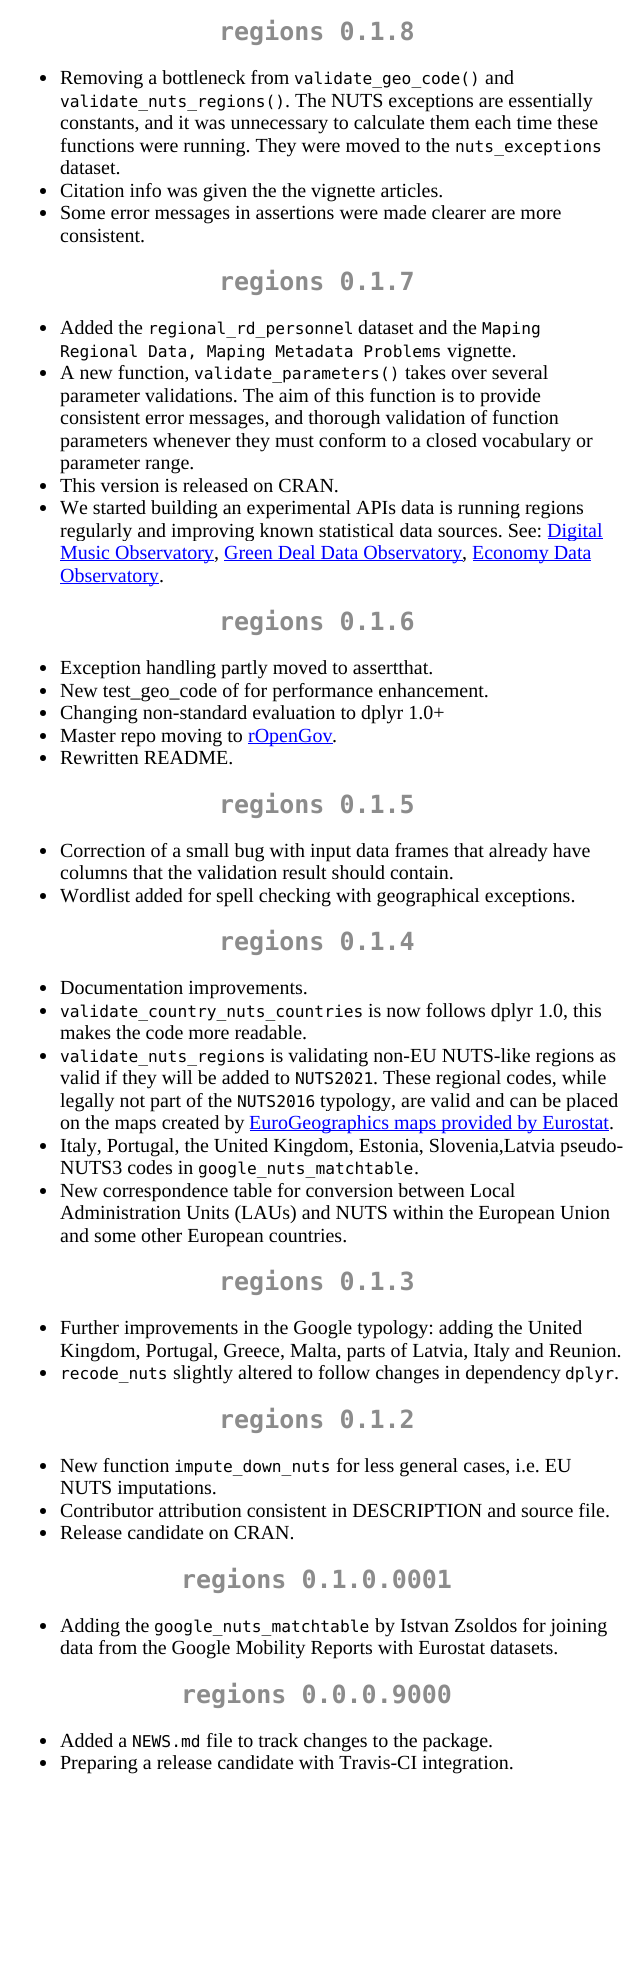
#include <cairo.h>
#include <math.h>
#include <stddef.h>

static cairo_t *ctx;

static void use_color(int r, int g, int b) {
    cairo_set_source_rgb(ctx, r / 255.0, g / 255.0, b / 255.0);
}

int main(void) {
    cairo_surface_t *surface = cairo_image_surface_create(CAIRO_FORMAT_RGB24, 633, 1975);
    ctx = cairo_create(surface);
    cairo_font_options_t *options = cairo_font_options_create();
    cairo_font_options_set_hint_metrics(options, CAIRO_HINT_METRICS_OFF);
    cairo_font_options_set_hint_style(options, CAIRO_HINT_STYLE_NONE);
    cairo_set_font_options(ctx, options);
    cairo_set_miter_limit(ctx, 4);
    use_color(255, 255, 255);
    cairo_paint(ctx);
    cairo_select_font_face(ctx, "DejaVu Sans Mono", CAIRO_FONT_SLANT_NORMAL, CAIRO_FONT_WEIGHT_BOLD);
    cairo_set_font_size(ctx, 25);
    use_color(140, 140, 140);
    cairo_move_to(ctx, 219, 40);
    cairo_show_text(ctx, "regions 0.1.8");
    use_color(0, 0, 0);
    cairo_new_path(ctx);
    cairo_arc(ctx, 43, 78, 3, 0, 2 * M_PI);
    cairo_fill(ctx);
    cairo_select_font_face(ctx, "Liberation Serif", CAIRO_FONT_SLANT_NORMAL, CAIRO_FONT_WEIGHT_NORMAL);
    cairo_set_font_size(ctx, 20);
    cairo_move_to(ctx, 60, 84);
    cairo_show_text(ctx, "Removing a bottleneck from");
    cairo_select_font_face(ctx, "DejaVu Sans Mono", CAIRO_FONT_SLANT_NORMAL, CAIRO_FONT_WEIGHT_NORMAL);
    cairo_set_font_size(ctx, 16.25);
    cairo_move_to(ctx, 294, 84);
    cairo_show_text(ctx, "validate_geo_code()");
    cairo_select_font_face(ctx, "Liberation Serif", CAIRO_FONT_SLANT_NORMAL, CAIRO_FONT_WEIGHT_NORMAL);
    cairo_set_font_size(ctx, 20);
    cairo_move_to(ctx, 485, 84);
    cairo_show_text(ctx, "and");
    cairo_select_font_face(ctx, "DejaVu Sans Mono", CAIRO_FONT_SLANT_NORMAL, CAIRO_FONT_WEIGHT_NORMAL);
    cairo_set_font_size(ctx, 16.25);
    cairo_move_to(ctx, 60, 107);
    cairo_show_text(ctx, "validate_nuts_regions()");
    cairo_select_font_face(ctx, "Liberation Serif", CAIRO_FONT_SLANT_NORMAL, CAIRO_FONT_WEIGHT_NORMAL);
    cairo_set_font_size(ctx, 20);
    cairo_move_to(ctx, 285, 107);
    cairo_show_text(ctx, ". The NUTS exceptions are essentially");
    cairo_move_to(ctx, 60, 129);
    cairo_show_text(ctx, "constants, and it was unnecessary to calculate them each time these");
    cairo_move_to(ctx, 60, 152);
    cairo_show_text(ctx, "functions were running. They were moved to the");
    cairo_select_font_face(ctx, "DejaVu Sans Mono", CAIRO_FONT_SLANT_NORMAL, CAIRO_FONT_WEIGHT_NORMAL);
    cairo_set_font_size(ctx, 16.25);
    cairo_move_to(ctx, 455, 152);
    cairo_show_text(ctx, "nuts_exceptions");
    cairo_select_font_face(ctx, "Liberation Serif", CAIRO_FONT_SLANT_NORMAL, CAIRO_FONT_WEIGHT_NORMAL);
    cairo_set_font_size(ctx, 20);
    cairo_move_to(ctx, 60, 174);
    cairo_show_text(ctx, "dataset.");
    cairo_new_path(ctx);
    cairo_arc(ctx, 43, 191, 3, 0, 2 * M_PI);
    cairo_fill(ctx);
    cairo_move_to(ctx, 60, 197);
    cairo_show_text(ctx, "Citation info was given the the vignette articles.");
    cairo_new_path(ctx);
    cairo_arc(ctx, 43, 213, 3, 0, 2 * M_PI);
    cairo_fill(ctx);
    cairo_move_to(ctx, 60, 219);
    cairo_show_text(ctx, "Some error messages in assertions were made clearer are more");
    cairo_move_to(ctx, 60, 242);
    cairo_show_text(ctx, "consistent.");
    cairo_select_font_face(ctx, "DejaVu Sans Mono", CAIRO_FONT_SLANT_NORMAL, CAIRO_FONT_WEIGHT_BOLD);
    cairo_set_font_size(ctx, 25);
    use_color(140, 140, 140);
    cairo_move_to(ctx, 219, 290);
    cairo_show_text(ctx, "regions 0.1.7");
    use_color(0, 0, 0);
    cairo_new_path(ctx);
    cairo_arc(ctx, 43, 328, 3, 0, 2 * M_PI);
    cairo_fill(ctx);
    cairo_select_font_face(ctx, "Liberation Serif", CAIRO_FONT_SLANT_NORMAL, CAIRO_FONT_WEIGHT_NORMAL);
    cairo_set_font_size(ctx, 20);
    cairo_move_to(ctx, 60, 334);
    cairo_show_text(ctx, "Added the");
    cairo_select_font_face(ctx, "DejaVu Sans Mono", CAIRO_FONT_SLANT_NORMAL, CAIRO_FONT_WEIGHT_NORMAL);
    cairo_set_font_size(ctx, 16.25);
    cairo_move_to(ctx, 148, 334);
    cairo_show_text(ctx, "regional_rd_personnel");
    cairo_select_font_face(ctx, "Liberation Serif", CAIRO_FONT_SLANT_NORMAL, CAIRO_FONT_WEIGHT_NORMAL);
    cairo_set_font_size(ctx, 20);
    cairo_move_to(ctx, 358, 334);
    cairo_show_text(ctx, "dataset and the");
    cairo_select_font_face(ctx, "DejaVu Sans Mono", CAIRO_FONT_SLANT_NORMAL, CAIRO_FONT_WEIGHT_NORMAL);
    cairo_set_font_size(ctx, 16.25);
    cairo_move_to(ctx, 482, 334);
    cairo_show_text(ctx, "Maping");
    cairo_move_to(ctx, 60, 357);
    cairo_show_text(ctx, "Regional Data, Maping Metadata Problems");
    cairo_select_font_face(ctx, "Liberation Serif", CAIRO_FONT_SLANT_NORMAL, CAIRO_FONT_WEIGHT_NORMAL);
    cairo_set_font_size(ctx, 20);
    cairo_move_to(ctx, 447, 357);
    cairo_show_text(ctx, "vignette.");
    cairo_new_path(ctx);
    cairo_arc(ctx, 43, 373, 3, 0, 2 * M_PI);
    cairo_fill(ctx);
    cairo_move_to(ctx, 60, 379);
    cairo_show_text(ctx, "A new function,");
    cairo_select_font_face(ctx, "DejaVu Sans Mono", CAIRO_FONT_SLANT_NORMAL, CAIRO_FONT_WEIGHT_NORMAL);
    cairo_set_font_size(ctx, 16.25);
    cairo_move_to(ctx, 194, 379);
    cairo_show_text(ctx, "validate_parameters()");
    cairo_select_font_face(ctx, "Liberation Serif", CAIRO_FONT_SLANT_NORMAL, CAIRO_FONT_WEIGHT_NORMAL);
    cairo_set_font_size(ctx, 20);
    cairo_move_to(ctx, 405, 379);
    cairo_show_text(ctx, "takes over several");
    cairo_move_to(ctx, 60, 402);
    cairo_show_text(ctx, "parameter validations. The aim of this function is to provide");
    cairo_move_to(ctx, 60, 424);
    cairo_show_text(ctx, "consistent error messages, and thorough validation of function");
    cairo_move_to(ctx, 60, 447);
    cairo_show_text(ctx, "parameters whenever they must conform to a closed vocabulary or");
    cairo_move_to(ctx, 60, 469);
    cairo_show_text(ctx, "parameter range.");
    cairo_new_path(ctx);
    cairo_arc(ctx, 43, 486, 3, 0, 2 * M_PI);
    cairo_fill(ctx);
    cairo_move_to(ctx, 60, 492);
    cairo_show_text(ctx, "This version is released on CRAN.");
    cairo_new_path(ctx);
    cairo_arc(ctx, 43, 508, 3, 0, 2 * M_PI);
    cairo_fill(ctx);
    cairo_move_to(ctx, 60, 514);
    cairo_show_text(ctx, "We started building an experimental APIs data is running regions");
    cairo_move_to(ctx, 60, 537);
    cairo_show_text(ctx, "regularly and improving known statistical data sources. See:");
    use_color(0, 0, 255);
    cairo_rectangle(ctx, 548, 538, 55, 1);
    cairo_fill(ctx);
    cairo_move_to(ctx, 547, 537);
    cairo_show_text(ctx, "Digital");
    cairo_rectangle(ctx, 60, 560, 154, 1);
    cairo_fill(ctx);
    cairo_move_to(ctx, 60, 559);
    cairo_show_text(ctx, "Music Observatory");
    use_color(255, 255, 255);
    cairo_rectangle(ctx, 78, 541, 119, 1);
    cairo_fill(ctx);
    use_color(0, 0, 0);
    cairo_move_to(ctx, 214, 559);
    cairo_show_text(ctx, ",");
    use_color(0, 0, 255);
    cairo_rectangle(ctx, 224, 560, 239, 1);
    cairo_fill(ctx);
    cairo_move_to(ctx, 224, 559);
    cairo_show_text(ctx, "Green Deal Data Observatory");
    use_color(255, 255, 255);
    cairo_rectangle(ctx, 247, 541, 5, 1);
    cairo_fill(ctx);
    use_color(0, 0, 0);
    cairo_move_to(ctx, 462, 559);
    cairo_show_text(ctx, ",");
    use_color(0, 0, 255);
    cairo_rectangle(ctx, 473, 560, 118, 1);
    cairo_fill(ctx);
    cairo_move_to(ctx, 472, 559);
    cairo_show_text(ctx, "Economy Data");
    use_color(255, 255, 255);
    cairo_rectangle(ctx, 569, 541, 5, 1);
    cairo_fill(ctx);
    use_color(0, 0, 255);
    cairo_rectangle(ctx, 60, 583, 99, 1);
    cairo_fill(ctx);
    cairo_move_to(ctx, 60, 582);
    cairo_show_text(ctx, "Observatory");
    use_color(0, 0, 0);
    cairo_move_to(ctx, 159, 582);
    cairo_show_text(ctx, ".");
    cairo_select_font_face(ctx, "DejaVu Sans Mono", CAIRO_FONT_SLANT_NORMAL, CAIRO_FONT_WEIGHT_BOLD);
    cairo_set_font_size(ctx, 25);
    use_color(140, 140, 140);
    cairo_move_to(ctx, 219, 630);
    cairo_show_text(ctx, "regions 0.1.6");
    use_color(0, 0, 0);
    cairo_new_path(ctx);
    cairo_arc(ctx, 43, 668, 3, 0, 2 * M_PI);
    cairo_fill(ctx);
    cairo_select_font_face(ctx, "Liberation Serif", CAIRO_FONT_SLANT_NORMAL, CAIRO_FONT_WEIGHT_NORMAL);
    cairo_set_font_size(ctx, 20);
    cairo_move_to(ctx, 60, 674);
    cairo_show_text(ctx, "Exception handling partly moved to assertthat.");
    cairo_new_path(ctx);
    cairo_arc(ctx, 43, 691, 3, 0, 2 * M_PI);
    cairo_fill(ctx);
    cairo_move_to(ctx, 60, 697);
    cairo_show_text(ctx, "New test_geo_code of for performance enhancement.");
    cairo_new_path(ctx);
    cairo_arc(ctx, 43, 713, 3, 0, 2 * M_PI);
    cairo_fill(ctx);
    cairo_move_to(ctx, 60, 719);
    cairo_show_text(ctx, "Changing non-standard evaluation to dplyr 1.0+");
    cairo_new_path(ctx);
    cairo_arc(ctx, 43, 736, 3, 0, 2 * M_PI);
    cairo_fill(ctx);
    cairo_move_to(ctx, 60, 742);
    cairo_show_text(ctx, "Master repo moving to");
    use_color(0, 0, 255);
    cairo_rectangle(ctx, 248, 743, 85, 1);
    cairo_fill(ctx);
    cairo_move_to(ctx, 248, 742);
    cairo_show_text(ctx, "rOpenGov");
    use_color(0, 0, 0);
    cairo_move_to(ctx, 332, 742);
    cairo_show_text(ctx, ".");
    cairo_new_path(ctx);
    cairo_arc(ctx, 43, 758, 3, 0, 2 * M_PI);
    cairo_fill(ctx);
    cairo_move_to(ctx, 60, 764);
    cairo_show_text(ctx, "Rewritten README.");
    cairo_select_font_face(ctx, "DejaVu Sans Mono", CAIRO_FONT_SLANT_NORMAL, CAIRO_FONT_WEIGHT_BOLD);
    cairo_set_font_size(ctx, 25);
    use_color(140, 140, 140);
    cairo_move_to(ctx, 219, 813);
    cairo_show_text(ctx, "regions 0.1.5");
    use_color(0, 0, 0);
    cairo_new_path(ctx);
    cairo_arc(ctx, 43, 851, 3, 0, 2 * M_PI);
    cairo_fill(ctx);
    cairo_select_font_face(ctx, "Liberation Serif", CAIRO_FONT_SLANT_NORMAL, CAIRO_FONT_WEIGHT_NORMAL);
    cairo_set_font_size(ctx, 20);
    cairo_move_to(ctx, 60, 857);
    cairo_show_text(ctx, "Correction of a small bug with input data frames that already have");
    cairo_move_to(ctx, 60, 879);
    cairo_show_text(ctx, "columns that the validation result should contain.");
    cairo_new_path(ctx);
    cairo_arc(ctx, 43, 896, 3, 0, 2 * M_PI);
    cairo_fill(ctx);
    cairo_move_to(ctx, 60, 902);
    cairo_show_text(ctx, "Wordlist added for spell checking with geographical exceptions.");
    cairo_select_font_face(ctx, "DejaVu Sans Mono", CAIRO_FONT_SLANT_NORMAL, CAIRO_FONT_WEIGHT_BOLD);
    cairo_set_font_size(ctx, 25);
    use_color(140, 140, 140);
    cairo_move_to(ctx, 219, 950);
    cairo_show_text(ctx, "regions 0.1.4");
    use_color(0, 0, 0);
    cairo_new_path(ctx);
    cairo_arc(ctx, 43, 988, 3, 0, 2 * M_PI);
    cairo_fill(ctx);
    cairo_select_font_face(ctx, "Liberation Serif", CAIRO_FONT_SLANT_NORMAL, CAIRO_FONT_WEIGHT_NORMAL);
    cairo_set_font_size(ctx, 20);
    cairo_move_to(ctx, 60, 994);
    cairo_show_text(ctx, "Documentation improvements.");
    cairo_new_path(ctx);
    cairo_arc(ctx, 43, 1011, 3, 0, 2 * M_PI);
    cairo_fill(ctx);
    cairo_select_font_face(ctx, "DejaVu Sans Mono", CAIRO_FONT_SLANT_NORMAL, CAIRO_FONT_WEIGHT_NORMAL);
    cairo_set_font_size(ctx, 16.25);
    cairo_move_to(ctx, 60, 1017);
    cairo_show_text(ctx, "validate_country_nuts_countries");
    cairo_select_font_face(ctx, "Liberation Serif", CAIRO_FONT_SLANT_NORMAL, CAIRO_FONT_WEIGHT_NORMAL);
    cairo_set_font_size(ctx, 20);
    cairo_move_to(ctx, 368, 1017);
    cairo_show_text(ctx, "is now follows dplyr 1.0, this");
    cairo_move_to(ctx, 60, 1039);
    cairo_show_text(ctx, "makes the code more readable.");
    cairo_new_path(ctx);
    cairo_arc(ctx, 43, 1056, 3, 0, 2 * M_PI);
    cairo_fill(ctx);
    cairo_select_font_face(ctx, "DejaVu Sans Mono", CAIRO_FONT_SLANT_NORMAL, CAIRO_FONT_WEIGHT_NORMAL);
    cairo_set_font_size(ctx, 16.25);
    cairo_move_to(ctx, 60, 1062);
    cairo_show_text(ctx, "validate_nuts_regions");
    cairo_select_font_face(ctx, "Liberation Serif", CAIRO_FONT_SLANT_NORMAL, CAIRO_FONT_WEIGHT_NORMAL);
    cairo_set_font_size(ctx, 20);
    cairo_move_to(ctx, 270, 1062);
    cairo_show_text(ctx, "is validating non-EU NUTS-like regions as");
    cairo_move_to(ctx, 60, 1084);
    cairo_show_text(ctx, "valid if they will be added to");
    cairo_select_font_face(ctx, "DejaVu Sans Mono", CAIRO_FONT_SLANT_NORMAL, CAIRO_FONT_WEIGHT_NORMAL);
    cairo_set_font_size(ctx, 16.25);
    cairo_move_to(ctx, 295, 1084);
    cairo_show_text(ctx, "NUTS2021");
    cairo_select_font_face(ctx, "Liberation Serif", CAIRO_FONT_SLANT_NORMAL, CAIRO_FONT_WEIGHT_NORMAL);
    cairo_set_font_size(ctx, 20);
    cairo_move_to(ctx, 373, 1084);
    cairo_show_text(ctx, ". These regional codes, while");
    cairo_move_to(ctx, 60, 1107);
    cairo_show_text(ctx, "legally not part of the");
    cairo_select_font_face(ctx, "DejaVu Sans Mono", CAIRO_FONT_SLANT_NORMAL, CAIRO_FONT_WEIGHT_NORMAL);
    cairo_set_font_size(ctx, 16.25);
    cairo_move_to(ctx, 237, 1107);
    cairo_show_text(ctx, "NUTS2016");
    cairo_select_font_face(ctx, "Liberation Serif", CAIRO_FONT_SLANT_NORMAL, CAIRO_FONT_WEIGHT_NORMAL);
    cairo_set_font_size(ctx, 20);
    cairo_move_to(ctx, 320, 1107);
    cairo_show_text(ctx, "typology, are valid and can be placed");
    cairo_move_to(ctx, 60, 1129);
    cairo_show_text(ctx, "on the maps created by");
    use_color(0, 0, 255);
    cairo_rectangle(ctx, 250, 1130, 359, 1);
    cairo_fill(ctx);
    cairo_move_to(ctx, 249, 1129);
    cairo_show_text(ctx, "EuroGeographics maps provided by Eurostat");
    use_color(255, 255, 255);
    cairo_rectangle(ctx, 326, 1111, 246, 1);
    cairo_fill(ctx);
    use_color(0, 0, 0);
    cairo_move_to(ctx, 609, 1129);
    cairo_show_text(ctx, ".");
    cairo_new_path(ctx);
    cairo_arc(ctx, 43, 1146, 3, 0, 2 * M_PI);
    cairo_fill(ctx);
    cairo_move_to(ctx, 60, 1152);
    cairo_show_text(ctx, "Italy, Portugal, the United Kingdom, Estonia, Slovenia,Latvia pseudo-");
    cairo_move_to(ctx, 60, 1174);
    cairo_show_text(ctx, "NUTS3 codes in");
    cairo_select_font_face(ctx, "DejaVu Sans Mono", CAIRO_FONT_SLANT_NORMAL, CAIRO_FONT_WEIGHT_NORMAL);
    cairo_set_font_size(ctx, 16.25);
    cairo_move_to(ctx, 198, 1174);
    cairo_show_text(ctx, "google_nuts_matchtable");
    cairo_select_font_face(ctx, "Liberation Serif", CAIRO_FONT_SLANT_NORMAL, CAIRO_FONT_WEIGHT_NORMAL);
    cairo_set_font_size(ctx, 20);
    cairo_move_to(ctx, 414, 1174);
    cairo_show_text(ctx, ".");
    cairo_new_path(ctx);
    cairo_arc(ctx, 43, 1191, 3, 0, 2 * M_PI);
    cairo_fill(ctx);
    cairo_move_to(ctx, 60, 1197);
    cairo_show_text(ctx, "New correspondence table for conversion between Local");
    cairo_move_to(ctx, 60, 1219);
    cairo_show_text(ctx, "Administration Units (LAUs) and NUTS within the European Union");
    cairo_move_to(ctx, 60, 1242);
    cairo_show_text(ctx, "and some other European countries.");
    cairo_select_font_face(ctx, "DejaVu Sans Mono", CAIRO_FONT_SLANT_NORMAL, CAIRO_FONT_WEIGHT_BOLD);
    cairo_set_font_size(ctx, 25);
    use_color(140, 140, 140);
    cairo_move_to(ctx, 219, 1290);
    cairo_show_text(ctx, "regions 0.1.3");
    use_color(0, 0, 0);
    cairo_new_path(ctx);
    cairo_arc(ctx, 43, 1328, 3, 0, 2 * M_PI);
    cairo_fill(ctx);
    cairo_select_font_face(ctx, "Liberation Serif", CAIRO_FONT_SLANT_NORMAL, CAIRO_FONT_WEIGHT_NORMAL);
    cairo_set_font_size(ctx, 20);
    cairo_move_to(ctx, 60, 1334);
    cairo_show_text(ctx, "Further improvements in the Google typology: adding the United");
    cairo_move_to(ctx, 60, 1357);
    cairo_show_text(ctx, "Kingdom, Portugal, Greece, Malta, parts of Latvia, Italy and Reunion.");
    cairo_new_path(ctx);
    cairo_arc(ctx, 43, 1373, 3, 0, 2 * M_PI);
    cairo_fill(ctx);
    cairo_select_font_face(ctx, "DejaVu Sans Mono", CAIRO_FONT_SLANT_NORMAL, CAIRO_FONT_WEIGHT_NORMAL);
    cairo_set_font_size(ctx, 16.25);
    cairo_move_to(ctx, 60, 1379);
    cairo_show_text(ctx, "recode_nuts");
    cairo_select_font_face(ctx, "Liberation Serif", CAIRO_FONT_SLANT_NORMAL, CAIRO_FONT_WEIGHT_NORMAL);
    cairo_set_font_size(ctx, 20);
    cairo_move_to(ctx, 173, 1379);
    cairo_show_text(ctx, "slightly altered to follow changes in dependency");
    cairo_select_font_face(ctx, "DejaVu Sans Mono", CAIRO_FONT_SLANT_NORMAL, CAIRO_FONT_WEIGHT_NORMAL);
    cairo_set_font_size(ctx, 16.25);
    cairo_move_to(ctx, 565, 1379);
    cairo_show_text(ctx, "dplyr");
    cairo_select_font_face(ctx, "Liberation Serif", CAIRO_FONT_SLANT_NORMAL, CAIRO_FONT_WEIGHT_NORMAL);
    cairo_set_font_size(ctx, 20);
    cairo_move_to(ctx, 614, 1379);
    cairo_show_text(ctx, ".");
    cairo_select_font_face(ctx, "DejaVu Sans Mono", CAIRO_FONT_SLANT_NORMAL, CAIRO_FONT_WEIGHT_BOLD);
    cairo_set_font_size(ctx, 25);
    use_color(140, 140, 140);
    cairo_move_to(ctx, 219, 1428);
    cairo_show_text(ctx, "regions 0.1.2");
    use_color(0, 0, 0);
    cairo_new_path(ctx);
    cairo_arc(ctx, 43, 1466, 3, 0, 2 * M_PI);
    cairo_fill(ctx);
    cairo_select_font_face(ctx, "Liberation Serif", CAIRO_FONT_SLANT_NORMAL, CAIRO_FONT_WEIGHT_NORMAL);
    cairo_set_font_size(ctx, 20);
    cairo_move_to(ctx, 60, 1472);
    cairo_show_text(ctx, "New function");
    cairo_select_font_face(ctx, "DejaVu Sans Mono", CAIRO_FONT_SLANT_NORMAL, CAIRO_FONT_WEIGHT_NORMAL);
    cairo_set_font_size(ctx, 16.25);
    cairo_move_to(ctx, 174, 1472);
    cairo_show_text(ctx, "impute_down_nuts");
    cairo_select_font_face(ctx, "Liberation Serif", CAIRO_FONT_SLANT_NORMAL, CAIRO_FONT_WEIGHT_NORMAL);
    cairo_set_font_size(ctx, 20);
    cairo_move_to(ctx, 336, 1472);
    cairo_show_text(ctx, "for less general cases, i.e. EU");
    cairo_move_to(ctx, 60, 1494);
    cairo_show_text(ctx, "NUTS imputations.");
    cairo_new_path(ctx);
    cairo_arc(ctx, 43, 1511, 3, 0, 2 * M_PI);
    cairo_fill(ctx);
    cairo_move_to(ctx, 60, 1517);
    cairo_show_text(ctx, "Contributor attribution consistent in DESCRIPTION and source file.");
    cairo_new_path(ctx);
    cairo_arc(ctx, 43, 1533, 3, 0, 2 * M_PI);
    cairo_fill(ctx);
    cairo_move_to(ctx, 60, 1539);
    cairo_show_text(ctx, "Release candidate on CRAN.");
    cairo_select_font_face(ctx, "DejaVu Sans Mono", CAIRO_FONT_SLANT_NORMAL, CAIRO_FONT_WEIGHT_BOLD);
    cairo_set_font_size(ctx, 25);
    use_color(140, 140, 140);
    cairo_move_to(ctx, 181, 1588);
    cairo_show_text(ctx, "regions 0.1.0.0001");
    use_color(0, 0, 0);
    cairo_new_path(ctx);
    cairo_arc(ctx, 43, 1626, 3, 0, 2 * M_PI);
    cairo_fill(ctx);
    cairo_select_font_face(ctx, "Liberation Serif", CAIRO_FONT_SLANT_NORMAL, CAIRO_FONT_WEIGHT_NORMAL);
    cairo_set_font_size(ctx, 20);
    cairo_move_to(ctx, 60, 1632);
    cairo_show_text(ctx, "Adding the");
    cairo_select_font_face(ctx, "DejaVu Sans Mono", CAIRO_FONT_SLANT_NORMAL, CAIRO_FONT_WEIGHT_NORMAL);
    cairo_set_font_size(ctx, 16.25);
    cairo_move_to(ctx, 154, 1632);
    cairo_show_text(ctx, "google_nuts_matchtable");
    cairo_select_font_face(ctx, "Liberation Serif", CAIRO_FONT_SLANT_NORMAL, CAIRO_FONT_WEIGHT_NORMAL);
    cairo_set_font_size(ctx, 20);
    cairo_move_to(ctx, 375, 1632);
    cairo_show_text(ctx, "by Istvan Zsoldos for joining");
    cairo_move_to(ctx, 60, 1654);
    cairo_show_text(ctx, "data from the Google Mobility Reports with Eurostat datasets.");
    cairo_select_font_face(ctx, "DejaVu Sans Mono", CAIRO_FONT_SLANT_NORMAL, CAIRO_FONT_WEIGHT_BOLD);
    cairo_set_font_size(ctx, 25);
    use_color(140, 140, 140);
    cairo_move_to(ctx, 181, 1703);
    cairo_show_text(ctx, "regions 0.0.0.9000");
    use_color(0, 0, 0);
    cairo_new_path(ctx);
    cairo_arc(ctx, 43, 1741, 3, 0, 2 * M_PI);
    cairo_fill(ctx);
    cairo_select_font_face(ctx, "Liberation Serif", CAIRO_FONT_SLANT_NORMAL, CAIRO_FONT_WEIGHT_NORMAL);
    cairo_set_font_size(ctx, 20);
    cairo_move_to(ctx, 60, 1747);
    cairo_show_text(ctx, "Added a");
    cairo_select_font_face(ctx, "DejaVu Sans Mono", CAIRO_FONT_SLANT_NORMAL, CAIRO_FONT_WEIGHT_NORMAL);
    cairo_set_font_size(ctx, 16.25);
    cairo_move_to(ctx, 132, 1747);
    cairo_show_text(ctx, "NEWS.md");
    cairo_select_font_face(ctx, "Liberation Serif", CAIRO_FONT_SLANT_NORMAL, CAIRO_FONT_WEIGHT_NORMAL);
    cairo_set_font_size(ctx, 20);
    cairo_move_to(ctx, 206, 1747);
    cairo_show_text(ctx, "file to track changes to the package.");
    cairo_new_path(ctx);
    cairo_arc(ctx, 43, 1763, 3, 0, 2 * M_PI);
    cairo_fill(ctx);
    cairo_move_to(ctx, 60, 1769);
    cairo_show_text(ctx, "Preparing a release candidate with Travis-CI integration.");
    cairo_surface_write_to_png(surface, "result.png");
    cairo_font_options_destroy(options);
    cairo_destroy(ctx);
    cairo_surface_destroy(surface);
    return 0;
}
